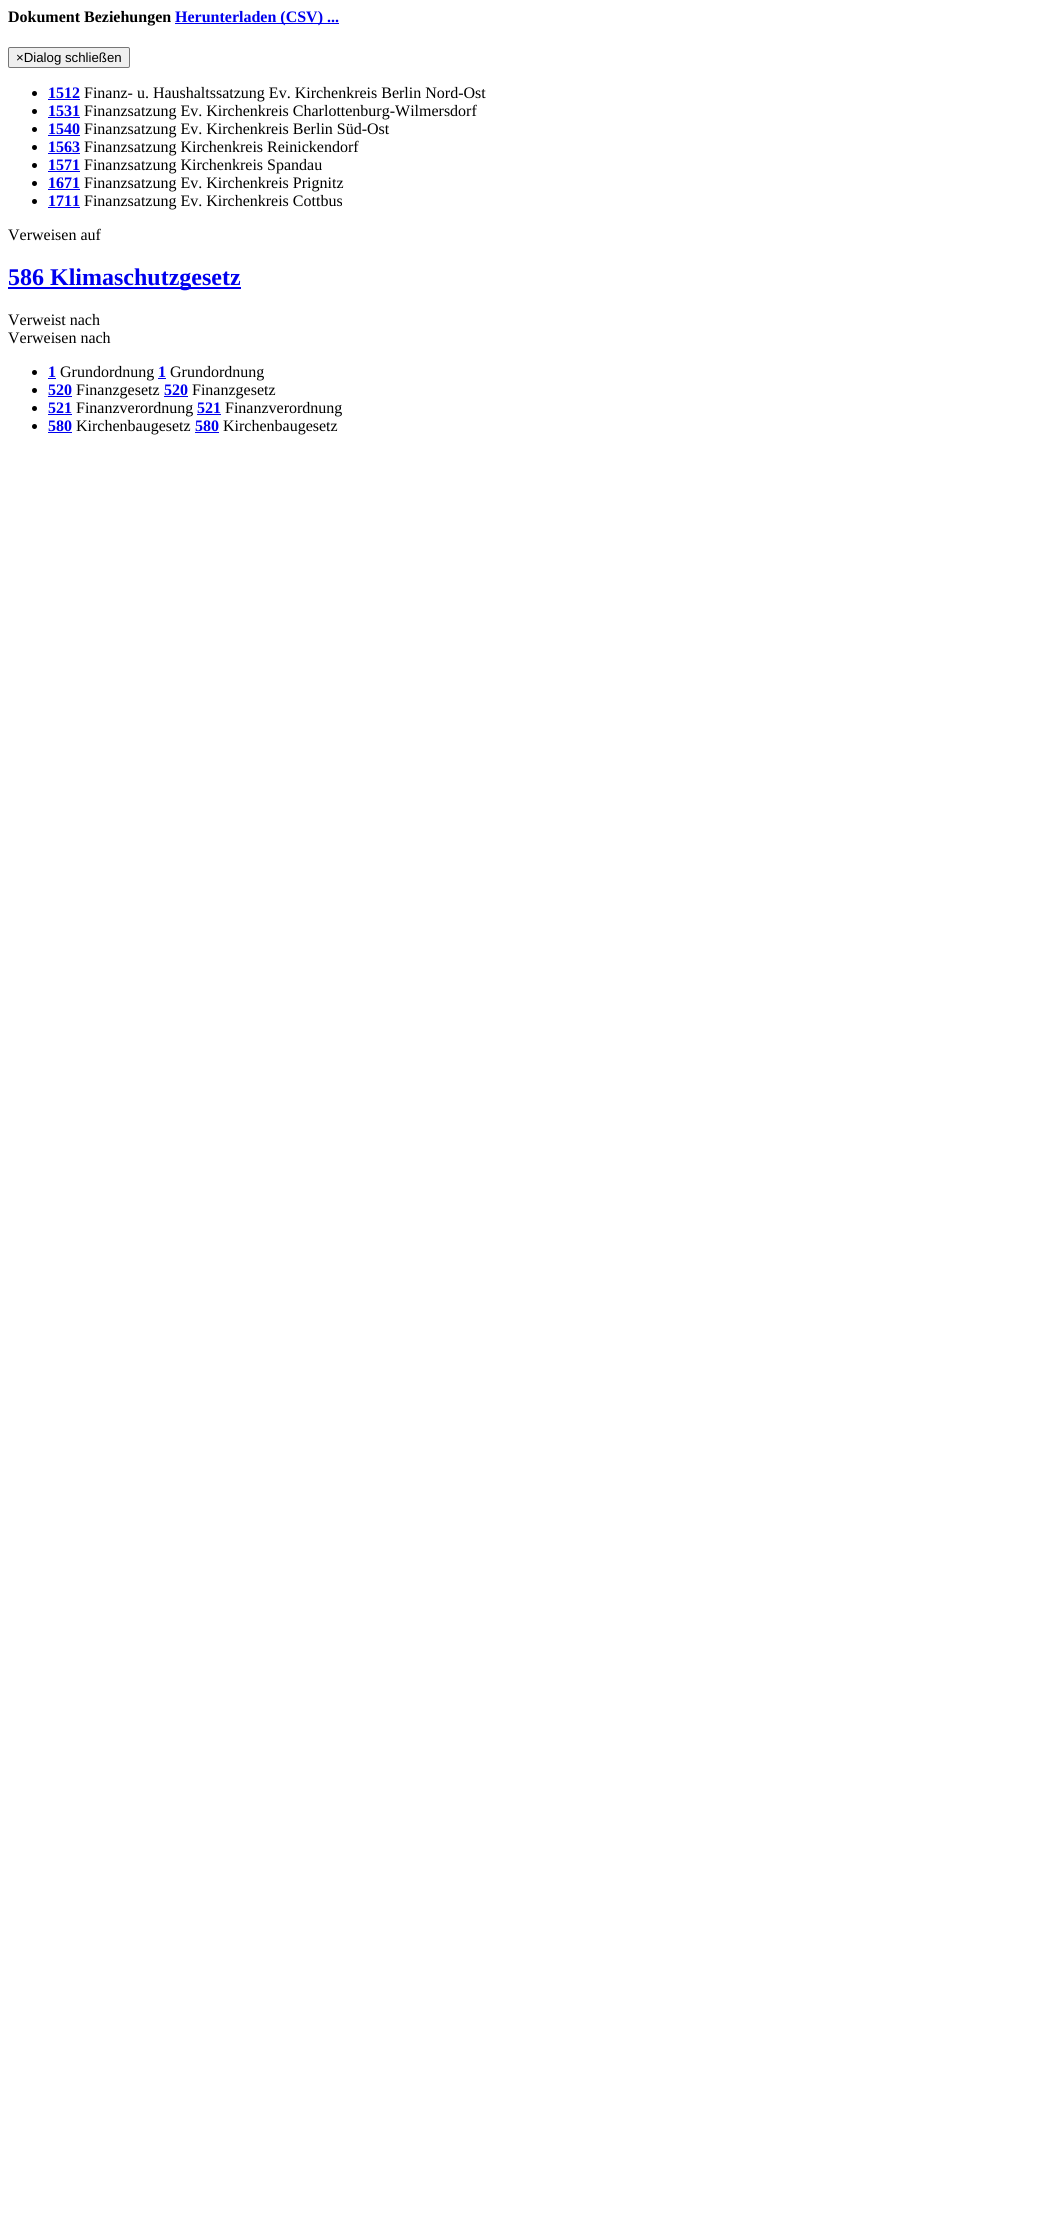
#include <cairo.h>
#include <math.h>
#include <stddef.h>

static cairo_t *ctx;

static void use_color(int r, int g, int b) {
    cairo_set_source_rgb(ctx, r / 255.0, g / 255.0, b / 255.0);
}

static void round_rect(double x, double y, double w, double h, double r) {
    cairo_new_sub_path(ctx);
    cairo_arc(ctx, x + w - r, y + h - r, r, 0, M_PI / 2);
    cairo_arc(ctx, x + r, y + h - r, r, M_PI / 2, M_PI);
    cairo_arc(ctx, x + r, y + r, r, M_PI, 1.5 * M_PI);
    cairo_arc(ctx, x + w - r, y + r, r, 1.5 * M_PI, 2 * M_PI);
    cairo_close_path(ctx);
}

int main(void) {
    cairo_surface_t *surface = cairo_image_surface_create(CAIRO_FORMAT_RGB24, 1046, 2232);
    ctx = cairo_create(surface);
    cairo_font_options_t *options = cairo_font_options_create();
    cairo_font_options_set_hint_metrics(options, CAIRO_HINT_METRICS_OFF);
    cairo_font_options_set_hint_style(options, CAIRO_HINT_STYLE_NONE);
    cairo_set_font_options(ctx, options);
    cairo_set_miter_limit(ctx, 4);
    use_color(255, 255, 255);
    cairo_paint(ctx);
    cairo_select_font_face(ctx, "Liberation Serif", CAIRO_FONT_SLANT_NORMAL, CAIRO_FONT_WEIGHT_BOLD);
    cairo_set_font_size(ctx, 16);
    use_color(0, 0, 0);
    cairo_move_to(ctx, 8, 22);
    cairo_show_text(ctx, "Dokument Beziehungen");
    use_color(0, 0, 238);
    cairo_rectangle(ctx, 175, 23, 164, 1);
    cairo_fill(ctx);
    cairo_move_to(ctx, 175, 22);
    cairo_show_text(ctx, "Herunterladen (CSV) ...");
    use_color(239, 239, 239);
    round_rect(8.5, 47.5, 121, 20, 1.5);
    cairo_fill_preserve(ctx);
    use_color(118, 118, 118);
    cairo_set_line_width(ctx, 1);
    cairo_stroke(ctx);
    cairo_select_font_face(ctx, "Liberation Sans", CAIRO_FONT_SLANT_NORMAL, CAIRO_FONT_WEIGHT_NORMAL);
    cairo_set_font_size(ctx, 13.25);
    use_color(0, 0, 0);
    cairo_move_to(ctx, 16, 62);
    cairo_show_text(ctx, "×Dialog schließen");
    cairo_new_path(ctx);
    cairo_arc(ctx, 34.5, 93.5, 2.5, 0, 2 * M_PI);
    cairo_fill(ctx);
    cairo_select_font_face(ctx, "Liberation Serif", CAIRO_FONT_SLANT_NORMAL, CAIRO_FONT_WEIGHT_BOLD);
    cairo_set_font_size(ctx, 16);
    use_color(0, 0, 238);
    cairo_move_to(ctx, 48, 98);
    cairo_show_text(ctx, "1512");
    cairo_rectangle(ctx, 48, 99, 32, 1);
    cairo_fill(ctx);
    cairo_select_font_face(ctx, "Liberation Serif", CAIRO_FONT_SLANT_NORMAL, CAIRO_FONT_WEIGHT_NORMAL);
    use_color(0, 0, 0);
    cairo_move_to(ctx, 84, 98);
    cairo_show_text(ctx, "Finanz- u. Haushaltssatzung Ev. Kirchenkreis Berlin Nord-Ost");
    cairo_new_path(ctx);
    cairo_arc(ctx, 34.5, 111.5, 2.5, 0, 2 * M_PI);
    cairo_fill(ctx);
    cairo_select_font_face(ctx, "Liberation Serif", CAIRO_FONT_SLANT_NORMAL, CAIRO_FONT_WEIGHT_BOLD);
    use_color(0, 0, 238);
    cairo_move_to(ctx, 48, 116);
    cairo_show_text(ctx, "1531");
    cairo_rectangle(ctx, 48, 117, 32, 1);
    cairo_fill(ctx);
    cairo_select_font_face(ctx, "Liberation Serif", CAIRO_FONT_SLANT_NORMAL, CAIRO_FONT_WEIGHT_NORMAL);
    use_color(0, 0, 0);
    cairo_move_to(ctx, 84, 116);
    cairo_show_text(ctx, "Finanzsatzung Ev. Kirchenkreis Charlottenburg-Wilmersdorf");
    cairo_new_path(ctx);
    cairo_arc(ctx, 34.5, 129.5, 2.5, 0, 2 * M_PI);
    cairo_fill(ctx);
    cairo_select_font_face(ctx, "Liberation Serif", CAIRO_FONT_SLANT_NORMAL, CAIRO_FONT_WEIGHT_BOLD);
    use_color(0, 0, 238);
    cairo_move_to(ctx, 48, 134);
    cairo_show_text(ctx, "1540");
    cairo_rectangle(ctx, 48, 135, 32, 1);
    cairo_fill(ctx);
    cairo_select_font_face(ctx, "Liberation Serif", CAIRO_FONT_SLANT_NORMAL, CAIRO_FONT_WEIGHT_NORMAL);
    use_color(0, 0, 0);
    cairo_move_to(ctx, 84, 134);
    cairo_show_text(ctx, "Finanzsatzung Ev. Kirchenkreis Berlin Süd-Ost");
    cairo_new_path(ctx);
    cairo_arc(ctx, 34.5, 147.5, 2.5, 0, 2 * M_PI);
    cairo_fill(ctx);
    cairo_select_font_face(ctx, "Liberation Serif", CAIRO_FONT_SLANT_NORMAL, CAIRO_FONT_WEIGHT_BOLD);
    use_color(0, 0, 238);
    cairo_move_to(ctx, 48, 152);
    cairo_show_text(ctx, "1563");
    cairo_rectangle(ctx, 48, 153, 32, 1);
    cairo_fill(ctx);
    cairo_select_font_face(ctx, "Liberation Serif", CAIRO_FONT_SLANT_NORMAL, CAIRO_FONT_WEIGHT_NORMAL);
    use_color(0, 0, 0);
    cairo_move_to(ctx, 84, 152);
    cairo_show_text(ctx, "Finanzsatzung Kirchenkreis Reinickendorf");
    cairo_new_path(ctx);
    cairo_arc(ctx, 34.5, 165.5, 2.5, 0, 2 * M_PI);
    cairo_fill(ctx);
    cairo_select_font_face(ctx, "Liberation Serif", CAIRO_FONT_SLANT_NORMAL, CAIRO_FONT_WEIGHT_BOLD);
    use_color(0, 0, 238);
    cairo_move_to(ctx, 48, 170);
    cairo_show_text(ctx, "1571");
    cairo_rectangle(ctx, 48, 171, 32, 1);
    cairo_fill(ctx);
    cairo_select_font_face(ctx, "Liberation Serif", CAIRO_FONT_SLANT_NORMAL, CAIRO_FONT_WEIGHT_NORMAL);
    use_color(0, 0, 0);
    cairo_move_to(ctx, 84, 170);
    cairo_show_text(ctx, "Finanzsatzung Kirchenkreis Spandau");
    cairo_new_path(ctx);
    cairo_arc(ctx, 34.5, 183.5, 2.5, 0, 2 * M_PI);
    cairo_fill(ctx);
    cairo_select_font_face(ctx, "Liberation Serif", CAIRO_FONT_SLANT_NORMAL, CAIRO_FONT_WEIGHT_BOLD);
    use_color(0, 0, 238);
    cairo_move_to(ctx, 48, 188);
    cairo_show_text(ctx, "1671");
    cairo_rectangle(ctx, 48, 189, 32, 1);
    cairo_fill(ctx);
    cairo_select_font_face(ctx, "Liberation Serif", CAIRO_FONT_SLANT_NORMAL, CAIRO_FONT_WEIGHT_NORMAL);
    use_color(0, 0, 0);
    cairo_move_to(ctx, 84, 188);
    cairo_show_text(ctx, "Finanzsatzung Ev. Kirchenkreis Prignitz");
    cairo_new_path(ctx);
    cairo_arc(ctx, 34.5, 201.5, 2.5, 0, 2 * M_PI);
    cairo_fill(ctx);
    cairo_select_font_face(ctx, "Liberation Serif", CAIRO_FONT_SLANT_NORMAL, CAIRO_FONT_WEIGHT_BOLD);
    use_color(0, 0, 238);
    cairo_move_to(ctx, 48, 206);
    cairo_show_text(ctx, "1711");
    cairo_rectangle(ctx, 48, 207, 32, 1);
    cairo_fill(ctx);
    cairo_select_font_face(ctx, "Liberation Serif", CAIRO_FONT_SLANT_NORMAL, CAIRO_FONT_WEIGHT_NORMAL);
    use_color(0, 0, 0);
    cairo_move_to(ctx, 84, 206);
    cairo_show_text(ctx, "Finanzsatzung Ev. Kirchenkreis Cottbus");
    cairo_move_to(ctx, 8, 240);
    cairo_show_text(ctx, "Verweisen auf");
    use_color(0, 0, 238);
    cairo_rectangle(ctx, 8, 287, 233, 2);
    cairo_fill(ctx);
    cairo_select_font_face(ctx, "Liberation Serif", CAIRO_FONT_SLANT_NORMAL, CAIRO_FONT_WEIGHT_BOLD);
    cairo_set_font_size(ctx, 24);
    cairo_move_to(ctx, 8, 285);
    cairo_show_text(ctx, "586 Klimaschutzgesetz");
    cairo_select_font_face(ctx, "Liberation Serif", CAIRO_FONT_SLANT_NORMAL, CAIRO_FONT_WEIGHT_NORMAL);
    cairo_set_font_size(ctx, 16);
    use_color(0, 0, 0);
    cairo_move_to(ctx, 8, 325);
    cairo_show_text(ctx, "Verweist nach");
    cairo_move_to(ctx, 8, 343);
    cairo_show_text(ctx, "Verweisen nach");
    cairo_new_path(ctx);
    cairo_arc(ctx, 34.5, 372.5, 2.5, 0, 2 * M_PI);
    cairo_fill(ctx);
    cairo_select_font_face(ctx, "Liberation Serif", CAIRO_FONT_SLANT_NORMAL, CAIRO_FONT_WEIGHT_BOLD);
    use_color(0, 0, 238);
    cairo_move_to(ctx, 48, 377);
    cairo_show_text(ctx, "1");
    cairo_rectangle(ctx, 48, 378, 8, 1);
    cairo_fill(ctx);
    cairo_select_font_face(ctx, "Liberation Serif", CAIRO_FONT_SLANT_NORMAL, CAIRO_FONT_WEIGHT_NORMAL);
    use_color(0, 0, 0);
    cairo_move_to(ctx, 60, 377);
    cairo_show_text(ctx, "Grundordnung");
    cairo_select_font_face(ctx, "Liberation Serif", CAIRO_FONT_SLANT_NORMAL, CAIRO_FONT_WEIGHT_BOLD);
    use_color(0, 0, 238);
    cairo_move_to(ctx, 158, 377);
    cairo_show_text(ctx, "1");
    cairo_rectangle(ctx, 158, 378, 8, 1);
    cairo_fill(ctx);
    cairo_select_font_face(ctx, "Liberation Serif", CAIRO_FONT_SLANT_NORMAL, CAIRO_FONT_WEIGHT_NORMAL);
    use_color(0, 0, 0);
    cairo_move_to(ctx, 170, 377);
    cairo_show_text(ctx, "Grundordnung");
    cairo_new_path(ctx);
    cairo_arc(ctx, 34.5, 390.5, 2.5, 0, 2 * M_PI);
    cairo_fill(ctx);
    cairo_select_font_face(ctx, "Liberation Serif", CAIRO_FONT_SLANT_NORMAL, CAIRO_FONT_WEIGHT_BOLD);
    use_color(0, 0, 238);
    cairo_move_to(ctx, 48, 395);
    cairo_show_text(ctx, "520");
    cairo_rectangle(ctx, 48, 396, 24, 1);
    cairo_fill(ctx);
    cairo_select_font_face(ctx, "Liberation Serif", CAIRO_FONT_SLANT_NORMAL, CAIRO_FONT_WEIGHT_NORMAL);
    use_color(0, 0, 0);
    cairo_move_to(ctx, 76, 395);
    cairo_show_text(ctx, "Finanzgesetz");
    cairo_select_font_face(ctx, "Liberation Serif", CAIRO_FONT_SLANT_NORMAL, CAIRO_FONT_WEIGHT_BOLD);
    use_color(0, 0, 238);
    cairo_move_to(ctx, 164, 395);
    cairo_show_text(ctx, "520");
    cairo_rectangle(ctx, 164, 396, 24, 1);
    cairo_fill(ctx);
    cairo_select_font_face(ctx, "Liberation Serif", CAIRO_FONT_SLANT_NORMAL, CAIRO_FONT_WEIGHT_NORMAL);
    use_color(0, 0, 0);
    cairo_move_to(ctx, 192, 395);
    cairo_show_text(ctx, "Finanzgesetz");
    cairo_new_path(ctx);
    cairo_arc(ctx, 34.5, 408.5, 2.5, 0, 2 * M_PI);
    cairo_fill(ctx);
    cairo_select_font_face(ctx, "Liberation Serif", CAIRO_FONT_SLANT_NORMAL, CAIRO_FONT_WEIGHT_BOLD);
    use_color(0, 0, 238);
    cairo_move_to(ctx, 48, 413);
    cairo_show_text(ctx, "521");
    cairo_rectangle(ctx, 48, 414, 24, 1);
    cairo_fill(ctx);
    cairo_select_font_face(ctx, "Liberation Serif", CAIRO_FONT_SLANT_NORMAL, CAIRO_FONT_WEIGHT_NORMAL);
    use_color(0, 0, 0);
    cairo_move_to(ctx, 76, 413);
    cairo_show_text(ctx, "Finanzverordnung");
    cairo_select_font_face(ctx, "Liberation Serif", CAIRO_FONT_SLANT_NORMAL, CAIRO_FONT_WEIGHT_BOLD);
    use_color(0, 0, 238);
    cairo_move_to(ctx, 197, 413);
    cairo_show_text(ctx, "521");
    cairo_rectangle(ctx, 197, 414, 24, 1);
    cairo_fill(ctx);
    cairo_select_font_face(ctx, "Liberation Serif", CAIRO_FONT_SLANT_NORMAL, CAIRO_FONT_WEIGHT_NORMAL);
    use_color(0, 0, 0);
    cairo_move_to(ctx, 225, 413);
    cairo_show_text(ctx, "Finanzverordnung");
    cairo_new_path(ctx);
    cairo_arc(ctx, 34.5, 426.5, 2.5, 0, 2 * M_PI);
    cairo_fill(ctx);
    cairo_select_font_face(ctx, "Liberation Serif", CAIRO_FONT_SLANT_NORMAL, CAIRO_FONT_WEIGHT_BOLD);
    use_color(0, 0, 238);
    cairo_move_to(ctx, 48, 431);
    cairo_show_text(ctx, "580");
    cairo_rectangle(ctx, 48, 432, 24, 1);
    cairo_fill(ctx);
    cairo_select_font_face(ctx, "Liberation Serif", CAIRO_FONT_SLANT_NORMAL, CAIRO_FONT_WEIGHT_NORMAL);
    use_color(0, 0, 0);
    cairo_move_to(ctx, 76, 431);
    cairo_show_text(ctx, "Kirchenbaugesetz");
    cairo_select_font_face(ctx, "Liberation Serif", CAIRO_FONT_SLANT_NORMAL, CAIRO_FONT_WEIGHT_BOLD);
    use_color(0, 0, 238);
    cairo_move_to(ctx, 195, 431);
    cairo_show_text(ctx, "580");
    cairo_rectangle(ctx, 195, 432, 24, 1);
    cairo_fill(ctx);
    cairo_select_font_face(ctx, "Liberation Serif", CAIRO_FONT_SLANT_NORMAL, CAIRO_FONT_WEIGHT_NORMAL);
    use_color(0, 0, 0);
    cairo_move_to(ctx, 223, 431);
    cairo_show_text(ctx, "Kirchenbaugesetz");
    cairo_surface_write_to_png(surface, "result.png");
    cairo_font_options_destroy(options);
    cairo_destroy(ctx);
    cairo_surface_destroy(surface);
    return 0;
}
